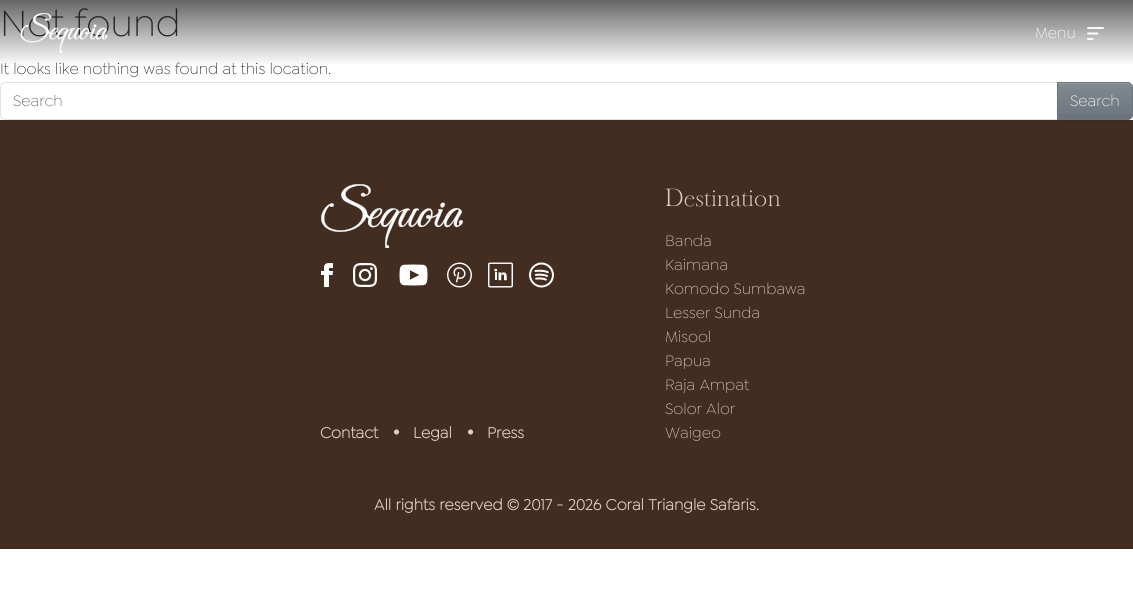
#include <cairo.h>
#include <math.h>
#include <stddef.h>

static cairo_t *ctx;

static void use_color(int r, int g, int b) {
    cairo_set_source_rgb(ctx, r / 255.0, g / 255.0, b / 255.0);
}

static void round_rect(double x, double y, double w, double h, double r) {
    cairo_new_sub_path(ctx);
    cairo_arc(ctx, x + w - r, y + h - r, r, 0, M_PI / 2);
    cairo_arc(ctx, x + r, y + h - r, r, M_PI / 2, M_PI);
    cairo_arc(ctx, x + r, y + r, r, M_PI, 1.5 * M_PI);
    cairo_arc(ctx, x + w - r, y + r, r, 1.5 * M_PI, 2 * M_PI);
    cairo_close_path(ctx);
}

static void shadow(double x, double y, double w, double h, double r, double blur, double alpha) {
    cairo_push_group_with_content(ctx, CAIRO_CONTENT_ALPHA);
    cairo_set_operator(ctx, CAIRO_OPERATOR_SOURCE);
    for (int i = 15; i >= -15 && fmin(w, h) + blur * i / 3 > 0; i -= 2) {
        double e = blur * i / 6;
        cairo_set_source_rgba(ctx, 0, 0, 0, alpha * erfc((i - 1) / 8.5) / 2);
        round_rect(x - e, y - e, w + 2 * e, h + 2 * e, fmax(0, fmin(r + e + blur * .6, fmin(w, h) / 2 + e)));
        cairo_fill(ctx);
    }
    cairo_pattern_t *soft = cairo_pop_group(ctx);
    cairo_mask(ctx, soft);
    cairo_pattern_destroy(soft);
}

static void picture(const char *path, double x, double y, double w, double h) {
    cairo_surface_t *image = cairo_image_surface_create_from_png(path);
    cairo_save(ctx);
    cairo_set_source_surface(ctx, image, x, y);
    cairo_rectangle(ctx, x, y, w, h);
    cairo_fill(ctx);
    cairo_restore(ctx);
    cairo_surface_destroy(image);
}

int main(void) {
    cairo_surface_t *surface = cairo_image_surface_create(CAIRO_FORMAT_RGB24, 1133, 605);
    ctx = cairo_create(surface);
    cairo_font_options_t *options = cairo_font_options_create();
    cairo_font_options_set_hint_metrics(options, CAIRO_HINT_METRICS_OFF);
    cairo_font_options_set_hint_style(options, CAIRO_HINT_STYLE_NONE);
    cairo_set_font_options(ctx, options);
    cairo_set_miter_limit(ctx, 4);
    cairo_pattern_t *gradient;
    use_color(255, 255, 255);
    cairo_paint(ctx);
    cairo_select_font_face(ctx, "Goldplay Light", CAIRO_FONT_SLANT_NORMAL, CAIRO_FONT_WEIGHT_NORMAL);
    cairo_set_font_size(ctx, 39);
    use_color(33, 37, 41);
    cairo_move_to(ctx, 0, 36);
    cairo_show_text(ctx, "Not found");
    cairo_set_font_size(ctx, 16);
    cairo_move_to(ctx, 0, 74);
    cairo_show_text(ctx, "It looks like nothing was found at this location.");
    cairo_new_path(ctx);
    cairo_move_to(ctx, 6, 82.5);
    cairo_line_to(ctx, 1057.5, 82.5);
    cairo_line_to(ctx, 1057.5, 119.5);
    cairo_line_to(ctx, 6, 119.5);
    cairo_curve_to(ctx, 3, 119.5, 0.5, 117, 0.5, 114);
    cairo_line_to(ctx, 0.5, 88);
    cairo_curve_to(ctx, 0.5, 85, 3, 82.5, 6, 82.5);
    cairo_close_path(ctx);
    use_color(222, 226, 230);
    cairo_set_line_width(ctx, 1);
    cairo_stroke(ctx);
    use_color(89, 92, 95);
    cairo_move_to(ctx, 13, 106);
    cairo_show_text(ctx, "Search");
    use_color(67, 44, 32);
    cairo_rectangle(ctx, 0, 120, 1133, 429);
    cairo_fill(ctx);
    use_color(0, 0, 0);
    shadow(1057, 83, 76, 38, 6, 0.5, 0.07);
    use_color(108, 117, 125);
    cairo_new_path(ctx);
    cairo_move_to(ctx, 1057, 82);
    cairo_line_to(ctx, 1127, 82);
    cairo_curve_to(ctx, 1130.5, 82, 1133, 84.5, 1133, 88);
    cairo_line_to(ctx, 1133, 114);
    cairo_curve_to(ctx, 1133, 117.5, 1130.5, 120, 1127, 120);
    cairo_line_to(ctx, 1057, 120);
    cairo_close_path(ctx);
    cairo_fill(ctx);
    cairo_save(ctx);
    cairo_new_path(ctx);
    cairo_move_to(ctx, 1057, 82);
    cairo_line_to(ctx, 1127, 82);
    cairo_curve_to(ctx, 1130.5, 82, 1133, 84.5, 1133, 88);
    cairo_line_to(ctx, 1133, 114);
    cairo_curve_to(ctx, 1133, 117.5, 1130.5, 120, 1127, 120);
    cairo_line_to(ctx, 1057, 120);
    cairo_close_path(ctx);
    cairo_clip(ctx);
    gradient = cairo_pattern_create_linear(1095, 83, 1095, 119);
    cairo_pattern_add_color_stop_rgba(gradient, 0, 1, 1, 1, 0.15);
    cairo_pattern_add_color_stop_rgba(gradient, 1, 1, 1, 1, 0);
    cairo_set_source(ctx, gradient);
    cairo_pattern_destroy(gradient);
    cairo_rectangle(ctx, 1058, 83, 75, 31);
    cairo_fill(ctx);
    cairo_restore(ctx);
    use_color(149, 155, 161);
    cairo_new_path(ctx);
    cairo_move_to(ctx, 1058, 84);
    cairo_line_to(ctx, 1127, 84);
    cairo_curve_to(ctx, 1130, 84, 1132, 86, 1132, 89);
    cairo_line_to(ctx, 1132, 88);
    cairo_curve_to(ctx, 1132, 85, 1130, 83, 1127, 83);
    cairo_line_to(ctx, 1058, 83);
    cairo_close_path(ctx);
    cairo_fill(ctx);
    cairo_new_path(ctx);
    cairo_move_to(ctx, 1057.5, 82.5);
    cairo_line_to(ctx, 1127, 82.5);
    cairo_curve_to(ctx, 1130, 82.5, 1132.5, 85, 1132.5, 88);
    cairo_line_to(ctx, 1132.5, 114);
    cairo_curve_to(ctx, 1132.5, 117, 1130, 119.5, 1127, 119.5);
    cairo_line_to(ctx, 1057.5, 119.5);
    cairo_close_path(ctx);
    use_color(108, 117, 125);
    cairo_stroke(ctx);
    use_color(255, 255, 255);
    cairo_move_to(ctx, 1070, 106);
    cairo_show_text(ctx, "Search");
    gradient = cairo_pattern_create_linear(567, 0, 567, 66);
    cairo_pattern_add_color_stop_rgba(gradient, 0, 1, 1, 1, 0.15);
    cairo_pattern_add_color_stop_rgba(gradient, 1, 1, 1, 1, 0);
    cairo_set_source(ctx, gradient);
    cairo_pattern_destroy(gradient);
    cairo_rectangle(ctx, 4, 8, 174, 29);
    cairo_fill(ctx);
    gradient = cairo_pattern_create_linear(567, 0, 567, 66);
    cairo_pattern_add_color_stop_rgba(gradient, 0, 0, 0, 0, 0.6);
    cairo_pattern_add_color_stop_rgba(gradient, 1, 0, 0, 0, 0);
    cairo_set_source(ctx, gradient);
    cairo_pattern_destroy(gradient);
    cairo_rectangle(ctx, 0, 0, 1133, 64);
    cairo_fill(ctx);
    picture("img1.png", 20, 13, 88, 40);
    use_color(255, 255, 255);
    cairo_move_to(ctx, 1035, 38);
    cairo_show_text(ctx, "Menu");
    cairo_new_path(ctx);
    cairo_move_to(ctx, 1088, 28);
    cairo_line_to(ctx, 1103, 28);
    cairo_move_to(ctx, 1088, 33.5);
    cairo_line_to(ctx, 1097.5, 33.5);
    cairo_move_to(ctx, 1088, 39);
    cairo_line_to(ctx, 1092.5, 39);
    cairo_set_line_width(ctx, 1.9);
    cairo_set_line_cap(ctx, CAIRO_LINE_CAP_ROUND);
    cairo_set_line_join(ctx, CAIRO_LINE_JOIN_ROUND);
    cairo_stroke(ctx);
    picture("img2.png", 321, 184, 142, 64);
    picture("img3.png", 321, 263, 12, 24);
    picture("img4.png", 353, 263, 24, 24);
    picture("img5.png", 399, 264, 29, 22);
    picture("img6.png", 447, 262, 25, 26);
    picture("img7.png", 488, 262, 25, 26);
    picture("img8.png", 529, 262, 25, 26);
    cairo_select_font_face(ctx, "Goldplay", CAIRO_FONT_SLANT_NORMAL, CAIRO_FONT_WEIGHT_BOLD);
    use_color(219, 206, 199);
    cairo_move_to(ctx, 320, 438);
    cairo_show_text(ctx, "Contact");
    cairo_set_font_size(ctx, 48);
    cairo_move_to(ctx, 391, 434);
    cairo_show_text(ctx, ".");
    cairo_set_font_size(ctx, 16);
    cairo_move_to(ctx, 413, 438);
    cairo_show_text(ctx, "Legal");
    cairo_set_font_size(ctx, 48);
    cairo_move_to(ctx, 465, 434);
    cairo_show_text(ctx, ".");
    cairo_set_font_size(ctx, 16);
    cairo_move_to(ctx, 487, 438);
    cairo_show_text(ctx, "Press");
    cairo_select_font_face(ctx, "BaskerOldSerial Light", CAIRO_FONT_SLANT_NORMAL, CAIRO_FONT_WEIGHT_NORMAL);
    cairo_set_font_size(ctx, 24);
    cairo_move_to(ctx, 665, 206);
    cairo_show_text(ctx, "Destination");
    cairo_select_font_face(ctx, "Goldplay Light", CAIRO_FONT_SLANT_NORMAL, CAIRO_FONT_WEIGHT_NORMAL);
    cairo_set_font_size(ctx, 16);
    cairo_move_to(ctx, 665, 246);
    cairo_show_text(ctx, "Banda");
    cairo_move_to(ctx, 665, 270);
    cairo_show_text(ctx, "Kaimana");
    cairo_move_to(ctx, 665, 294);
    cairo_show_text(ctx, "Komodo Sumbawa");
    cairo_move_to(ctx, 665, 318);
    cairo_show_text(ctx, "Lesser Sunda");
    cairo_move_to(ctx, 665, 342);
    cairo_show_text(ctx, "Misool");
    cairo_move_to(ctx, 665, 366);
    cairo_show_text(ctx, "Papua");
    cairo_move_to(ctx, 665, 390);
    cairo_show_text(ctx, "Raja Ampat");
    cairo_move_to(ctx, 665, 414);
    cairo_show_text(ctx, "Solor Alor");
    cairo_move_to(ctx, 665, 438);
    cairo_show_text(ctx, "Waigeo");
    cairo_select_font_face(ctx, "Goldplay", CAIRO_FONT_SLANT_NORMAL, CAIRO_FONT_WEIGHT_BOLD);
    cairo_move_to(ctx, 374, 510);
    cairo_show_text(ctx, "All rights reserved © 2017 - 2026 Coral Triangle Safaris.");
    cairo_surface_write_to_png(surface, "result.png");
    cairo_font_options_destroy(options);
    cairo_destroy(ctx);
    cairo_surface_destroy(surface);
    return 0;
}
